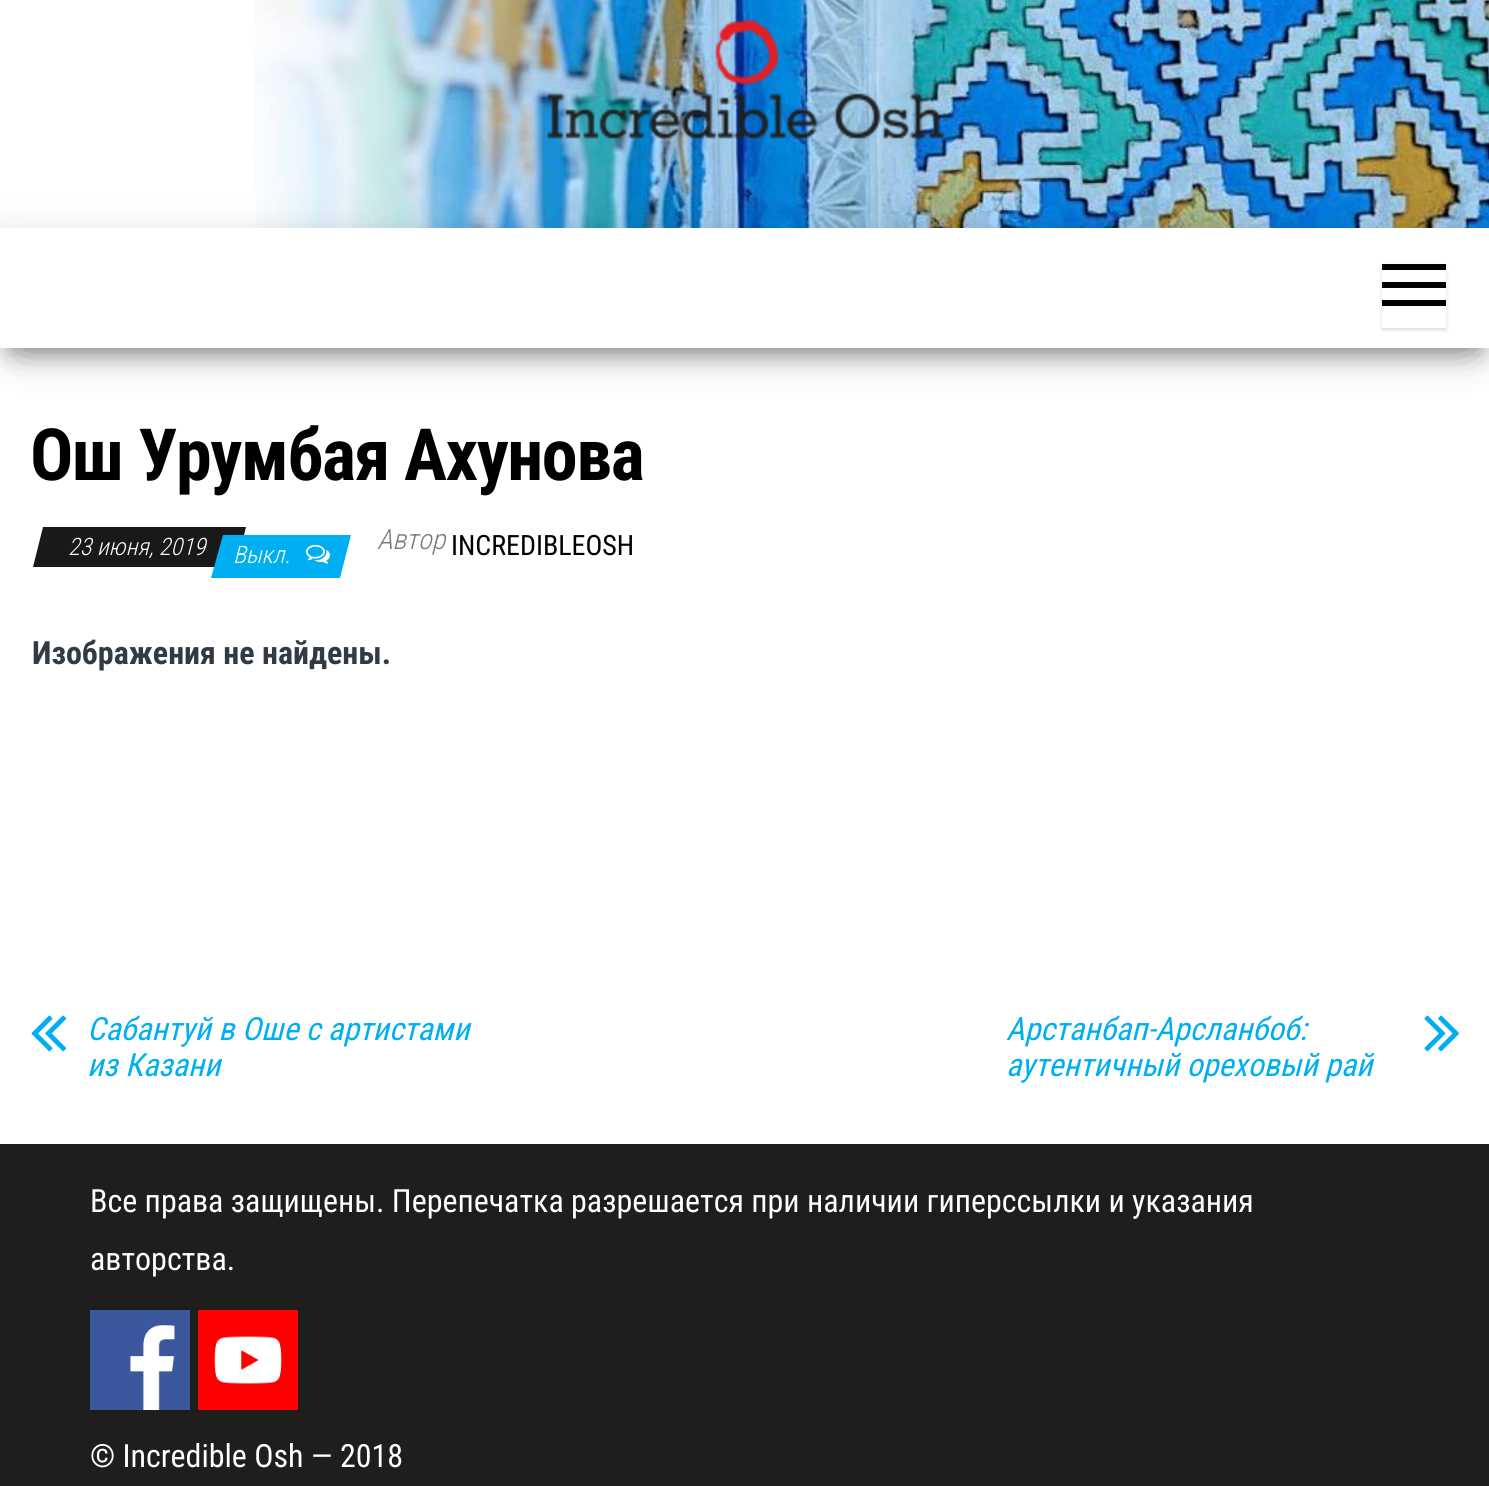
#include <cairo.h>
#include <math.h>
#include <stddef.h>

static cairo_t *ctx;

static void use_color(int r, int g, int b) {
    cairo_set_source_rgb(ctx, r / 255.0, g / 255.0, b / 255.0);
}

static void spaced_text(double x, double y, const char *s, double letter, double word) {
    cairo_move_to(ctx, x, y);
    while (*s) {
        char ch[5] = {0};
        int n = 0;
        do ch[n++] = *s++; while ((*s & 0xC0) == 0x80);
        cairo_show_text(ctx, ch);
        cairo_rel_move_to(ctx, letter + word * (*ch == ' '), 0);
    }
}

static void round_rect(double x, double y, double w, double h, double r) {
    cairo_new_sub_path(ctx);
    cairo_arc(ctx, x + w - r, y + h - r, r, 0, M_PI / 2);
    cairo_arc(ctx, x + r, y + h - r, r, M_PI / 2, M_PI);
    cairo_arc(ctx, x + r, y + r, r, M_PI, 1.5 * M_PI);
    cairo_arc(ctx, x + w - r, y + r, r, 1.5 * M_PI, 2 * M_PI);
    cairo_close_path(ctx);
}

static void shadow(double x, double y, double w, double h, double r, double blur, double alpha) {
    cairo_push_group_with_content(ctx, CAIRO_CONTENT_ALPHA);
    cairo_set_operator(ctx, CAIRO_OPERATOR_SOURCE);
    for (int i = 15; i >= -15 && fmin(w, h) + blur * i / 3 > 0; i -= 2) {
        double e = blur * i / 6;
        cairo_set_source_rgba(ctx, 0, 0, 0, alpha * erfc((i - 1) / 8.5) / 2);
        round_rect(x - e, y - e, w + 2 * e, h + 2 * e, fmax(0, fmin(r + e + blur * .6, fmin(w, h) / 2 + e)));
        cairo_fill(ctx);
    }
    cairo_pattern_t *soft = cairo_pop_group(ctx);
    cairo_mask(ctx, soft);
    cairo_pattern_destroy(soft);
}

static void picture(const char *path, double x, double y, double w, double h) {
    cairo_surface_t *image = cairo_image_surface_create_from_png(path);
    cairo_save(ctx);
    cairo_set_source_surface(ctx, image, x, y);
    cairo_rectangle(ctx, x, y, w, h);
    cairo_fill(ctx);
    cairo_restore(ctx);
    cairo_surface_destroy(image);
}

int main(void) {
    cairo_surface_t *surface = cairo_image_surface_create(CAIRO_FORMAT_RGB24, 1489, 1486);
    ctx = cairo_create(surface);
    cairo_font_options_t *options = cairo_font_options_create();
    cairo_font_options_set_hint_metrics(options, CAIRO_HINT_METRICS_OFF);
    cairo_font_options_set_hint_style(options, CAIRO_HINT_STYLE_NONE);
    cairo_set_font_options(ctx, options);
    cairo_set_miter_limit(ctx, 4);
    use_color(255, 255, 255);
    cairo_paint(ctx);
    picture("img1.png", 254, 0, 1235, 228);
    picture("img2.png", 547, 20, 398, 119);
    use_color(0, 0, 0);
    shadow(10, 254, 1470, 100, 0, 10, 0.2);
    shadow(0, 234, 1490, 120, 0, 20, 0.12);
    shadow(24, 272, 1442, 72, 0, 20, 0.42);
    use_color(255, 255, 255);
    cairo_rectangle(ctx, 0, 228, 1489, 120);
    cairo_fill(ctx);
    cairo_save(ctx);
    cairo_set_fill_rule(ctx, CAIRO_FILL_RULE_EVEN_ODD);
    cairo_new_path(ctx);
    cairo_move_to(ctx, 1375, 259);
    cairo_line_to(ctx, 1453, 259);
    cairo_line_to(ctx, 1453, 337);
    cairo_line_to(ctx, 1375, 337);
    cairo_close_path(ctx);
    cairo_move_to(ctx, 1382, 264);
    cairo_line_to(ctx, 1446, 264);
    cairo_line_to(ctx, 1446, 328);
    cairo_line_to(ctx, 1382, 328);
    cairo_close_path(ctx);
    cairo_clip(ctx);
    use_color(0, 0, 0);
    shadow(1382, 266, 64, 64, 0, 2, 0.15);
    cairo_restore(ctx);
    use_color(0, 0, 0);
    cairo_rectangle(ctx, 1382, 264, 64, 6);
    cairo_fill(ctx);
    cairo_rectangle(ctx, 1382, 282, 64, 6);
    cairo_fill(ctx);
    cairo_rectangle(ctx, 1382, 300, 64, 6);
    cairo_fill(ctx);
    cairo_select_font_face(ctx, "Roboto Condensed", CAIRO_FONT_SLANT_NORMAL, CAIRO_FONT_WEIGHT_BOLD);
    cairo_set_font_size(ctx, 72);
    spaced_text(30, 480, "Ош Урумбая Ахунова", -1.4, 0);
    use_color(25, 25, 25);
    cairo_new_path(ctx);
    cairo_move_to(ctx, 43, 527);
    cairo_line_to(ctx, 246, 527);
    cairo_line_to(ctx, 236, 567);
    cairo_line_to(ctx, 33, 567);
    cairo_close_path(ctx);
    cairo_fill(ctx);
    cairo_select_font_face(ctx, "Roboto Condensed Light", CAIRO_FONT_SLANT_ITALIC, CAIRO_FONT_WEIGHT_NORMAL);
    cairo_set_font_size(ctx, 24);
    use_color(255, 255, 255);
    cairo_move_to(ctx, 68, 555);
    cairo_show_text(ctx, "23 июня, 2019");
    use_color(0, 175, 242);
    cairo_new_path(ctx);
    cairo_move_to(ctx, 223, 535);
    cairo_line_to(ctx, 351, 535);
    cairo_line_to(ctx, 340, 578);
    cairo_line_to(ctx, 211, 578);
    cairo_close_path(ctx);
    cairo_fill(ctx);
    use_color(255, 255, 255);
    cairo_move_to(ctx, 233, 563);
    cairo_show_text(ctx, "Выкл.");
    picture("img3.png", 306, 544, 24, 20);
    cairo_set_font_size(ctx, 28);
    use_color(121, 121, 121);
    cairo_move_to(ctx, 377, 549);
    cairo_show_text(ctx, "Автор");
    cairo_select_font_face(ctx, "Roboto Condensed", CAIRO_FONT_SLANT_NORMAL, CAIRO_FONT_WEIGHT_NORMAL);
    use_color(0, 0, 0);
    cairo_move_to(ctx, 451, 555);
    cairo_show_text(ctx, "INCREDIBLEOSH");
    cairo_select_font_face(ctx, "Roboto Condensed", CAIRO_FONT_SLANT_NORMAL, CAIRO_FONT_WEIGHT_BOLD);
    cairo_set_font_size(ctx, 32);
    use_color(50, 58, 69);
    cairo_move_to(ctx, 32, 664);
    cairo_show_text(ctx, "Изображения не найдены.");
    picture("img4.png", 31, 1015, 36, 37);
    cairo_select_font_face(ctx, "Roboto Condensed", CAIRO_FONT_SLANT_ITALIC, CAIRO_FONT_WEIGHT_NORMAL);
    use_color(0, 175, 242);
    cairo_move_to(ctx, 87, 1040);
    cairo_show_text(ctx, "Сабантуй в Оше с артистами");
    cairo_move_to(ctx, 87, 1076);
    cairo_show_text(ctx, "из Казани");
    cairo_move_to(ctx, 1006, 1040);
    cairo_show_text(ctx, "Арстанбап-Арсланбоб:");
    cairo_move_to(ctx, 1006, 1076);
    cairo_show_text(ctx, "аутентичный ореховый рай");
    picture("img5.png", 1424, 1015, 35, 37);
    use_color(30, 30, 30);
    cairo_rectangle(ctx, 0, 1144, 1489, 342);
    cairo_fill(ctx);
    cairo_select_font_face(ctx, "Roboto Condensed", CAIRO_FONT_SLANT_NORMAL, CAIRO_FONT_WEIGHT_NORMAL);
    use_color(255, 255, 255);
    cairo_move_to(ctx, 90, 1212);
    cairo_show_text(ctx, "Все права защищены. Перепечатка разрешается при наличии гиперссылки и указания");
    cairo_move_to(ctx, 90, 1270);
    cairo_show_text(ctx, "авторства.");
    picture("img6.png", 90, 1310, 100, 100);
    picture("img7.png", 198, 1310, 100, 100);
    cairo_move_to(ctx, 90, 1467);
    cairo_show_text(ctx, "© Incredible Osh — 2018");
    cairo_surface_write_to_png(surface, "result.png");
    cairo_font_options_destroy(options);
    cairo_destroy(ctx);
    cairo_surface_destroy(surface);
    return 0;
}
